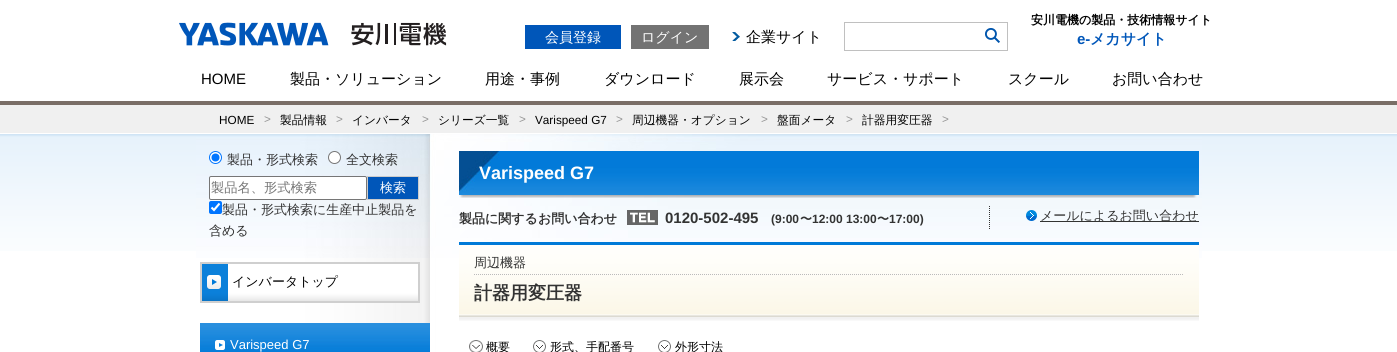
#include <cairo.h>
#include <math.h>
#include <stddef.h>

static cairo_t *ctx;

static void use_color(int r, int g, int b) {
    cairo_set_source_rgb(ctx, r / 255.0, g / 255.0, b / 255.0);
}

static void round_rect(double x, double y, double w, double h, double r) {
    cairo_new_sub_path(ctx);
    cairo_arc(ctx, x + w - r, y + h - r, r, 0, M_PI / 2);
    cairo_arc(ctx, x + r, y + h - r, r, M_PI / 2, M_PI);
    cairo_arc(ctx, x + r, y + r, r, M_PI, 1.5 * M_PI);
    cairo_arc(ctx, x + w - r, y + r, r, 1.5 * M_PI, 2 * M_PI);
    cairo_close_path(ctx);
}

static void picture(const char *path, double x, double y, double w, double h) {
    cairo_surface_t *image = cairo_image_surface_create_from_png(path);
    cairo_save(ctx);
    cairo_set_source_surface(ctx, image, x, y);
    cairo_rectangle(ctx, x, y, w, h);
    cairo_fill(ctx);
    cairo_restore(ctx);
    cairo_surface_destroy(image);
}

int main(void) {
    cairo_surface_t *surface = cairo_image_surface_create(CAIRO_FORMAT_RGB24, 1397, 352);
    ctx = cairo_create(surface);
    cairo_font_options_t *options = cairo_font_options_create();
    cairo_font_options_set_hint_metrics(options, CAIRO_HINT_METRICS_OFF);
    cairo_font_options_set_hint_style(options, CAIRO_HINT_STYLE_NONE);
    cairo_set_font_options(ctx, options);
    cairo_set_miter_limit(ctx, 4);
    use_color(255, 255, 255);
    cairo_paint(ctx);
    use_color(122, 110, 103);
    cairo_rectangle(ctx, 0, 101, 1397, 4);
    cairo_fill(ctx);
    use_color(0, 86, 185);
    cairo_rectangle(ctx, 525, 25, 96, 24);
    cairo_fill(ctx);
    cairo_select_font_face(ctx, "WenQuanYi Zen Hei Medium", CAIRO_FONT_SLANT_NORMAL, CAIRO_FONT_WEIGHT_NORMAL);
    cairo_set_font_size(ctx, 14);
    use_color(255, 255, 255);
    cairo_move_to(ctx, 545, 42);
    cairo_show_text(ctx, "会員登録");
    use_color(115, 115, 115);
    cairo_rectangle(ctx, 631, 25, 78, 24);
    cairo_fill(ctx);
    use_color(255, 255, 255);
    cairo_move_to(ctx, 641, 42);
    cairo_show_text(ctx, "ログイン");
    picture("img1.png", 732, 32, 8, 9);
    cairo_set_font_size(ctx, 15);
    use_color(0, 0, 0);
    cairo_move_to(ctx, 746, 42);
    cairo_show_text(ctx, "企業サイト");
    cairo_rectangle(ctx, 844.5, 22.5, 163, 28);
    use_color(192, 192, 192);
    cairo_set_line_width(ctx, 1);
    cairo_stroke(ctx);
    picture("img2.png", 985, 28, 15, 15);
    cairo_select_font_face(ctx, "WenQuanYi Zen Hei", CAIRO_FONT_SLANT_NORMAL, CAIRO_FONT_WEIGHT_BOLD);
    cairo_set_font_size(ctx, 12);
    use_color(0, 0, 0);
    cairo_move_to(ctx, 1031, 24);
    cairo_show_text(ctx, "安川電機の製品・技術情報サイト");
    cairo_select_font_face(ctx, "Liberation Sans", CAIRO_FONT_SLANT_NORMAL, CAIRO_FONT_WEIGHT_BOLD);
    cairo_set_font_size(ctx, 15);
    use_color(0, 86, 185);
    cairo_move_to(ctx, 1077, 44);
    cairo_show_text(ctx, "e-");
    cairo_select_font_face(ctx, "WenQuanYi Zen Hei", CAIRO_FONT_SLANT_NORMAL, CAIRO_FONT_WEIGHT_BOLD);
    cairo_move_to(ctx, 1090, 44);
    cairo_show_text(ctx, "メカサイト");
    cairo_select_font_face(ctx, "Liberation Sans", CAIRO_FONT_SLANT_NORMAL, CAIRO_FONT_WEIGHT_NORMAL);
    use_color(0, 0, 0);
    cairo_move_to(ctx, 201, 84);
    cairo_show_text(ctx, "HOME");
    cairo_select_font_face(ctx, "WenQuanYi Zen Hei Medium", CAIRO_FONT_SLANT_NORMAL, CAIRO_FONT_WEIGHT_NORMAL);
    cairo_move_to(ctx, 290, 84);
    cairo_show_text(ctx, "製品・ソリューション");
    cairo_move_to(ctx, 485, 84);
    cairo_show_text(ctx, "用途・事例");
    cairo_move_to(ctx, 604, 84);
    cairo_show_text(ctx, "ダウンロード");
    cairo_move_to(ctx, 739, 84);
    cairo_show_text(ctx, "展示会");
    cairo_move_to(ctx, 827, 84);
    cairo_show_text(ctx, "サービス・サポート");
    cairo_move_to(ctx, 1008, 84);
    cairo_show_text(ctx, "スクール");
    cairo_move_to(ctx, 1112, 84);
    cairo_show_text(ctx, "お問い合わせ");
    picture("img3.png", 179, 22, 268, 24);
    use_color(240, 240, 240);
    cairo_rectangle(ctx, 0, 105, 1397, 28);
    cairo_fill(ctx);
    cairo_select_font_face(ctx, "Liberation Sans", CAIRO_FONT_SLANT_NORMAL, CAIRO_FONT_WEIGHT_NORMAL);
    cairo_set_font_size(ctx, 11.75);
    use_color(0, 0, 0);
    cairo_move_to(ctx, 219, 124);
    cairo_show_text(ctx, "HOME");
    use_color(150, 150, 150);
    cairo_move_to(ctx, 264, 123);
    cairo_show_text(ctx, ">");
    cairo_select_font_face(ctx, "WenQuanYi Zen Hei Medium", CAIRO_FONT_SLANT_NORMAL, CAIRO_FONT_WEIGHT_NORMAL);
    use_color(0, 0, 0);
    cairo_move_to(ctx, 280, 124);
    cairo_show_text(ctx, "製品情報");
    cairo_select_font_face(ctx, "Liberation Sans", CAIRO_FONT_SLANT_NORMAL, CAIRO_FONT_WEIGHT_NORMAL);
    use_color(150, 150, 150);
    cairo_move_to(ctx, 336, 123);
    cairo_show_text(ctx, ">");
    cairo_select_font_face(ctx, "WenQuanYi Zen Hei Medium", CAIRO_FONT_SLANT_NORMAL, CAIRO_FONT_WEIGHT_NORMAL);
    use_color(0, 0, 0);
    cairo_move_to(ctx, 352, 124);
    cairo_show_text(ctx, "インバータ");
    cairo_select_font_face(ctx, "Liberation Sans", CAIRO_FONT_SLANT_NORMAL, CAIRO_FONT_WEIGHT_NORMAL);
    use_color(150, 150, 150);
    cairo_move_to(ctx, 422, 123);
    cairo_show_text(ctx, ">");
    cairo_select_font_face(ctx, "WenQuanYi Zen Hei Medium", CAIRO_FONT_SLANT_NORMAL, CAIRO_FONT_WEIGHT_NORMAL);
    use_color(0, 0, 0);
    cairo_move_to(ctx, 438, 124);
    cairo_show_text(ctx, "シリーズ一覧");
    cairo_select_font_face(ctx, "Liberation Sans", CAIRO_FONT_SLANT_NORMAL, CAIRO_FONT_WEIGHT_NORMAL);
    use_color(150, 150, 150);
    cairo_move_to(ctx, 519, 123);
    cairo_show_text(ctx, ">");
    use_color(0, 0, 0);
    cairo_move_to(ctx, 535, 124);
    cairo_show_text(ctx, "Varispeed G7");
    use_color(150, 150, 150);
    cairo_move_to(ctx, 616, 123);
    cairo_show_text(ctx, ">");
    cairo_select_font_face(ctx, "WenQuanYi Zen Hei Medium", CAIRO_FONT_SLANT_NORMAL, CAIRO_FONT_WEIGHT_NORMAL);
    use_color(0, 0, 0);
    cairo_move_to(ctx, 632, 124);
    cairo_show_text(ctx, "周辺機器・オプション");
    cairo_select_font_face(ctx, "Liberation Sans", CAIRO_FONT_SLANT_NORMAL, CAIRO_FONT_WEIGHT_NORMAL);
    use_color(150, 150, 150);
    cairo_move_to(ctx, 761, 123);
    cairo_show_text(ctx, ">");
    cairo_select_font_face(ctx, "WenQuanYi Zen Hei Medium", CAIRO_FONT_SLANT_NORMAL, CAIRO_FONT_WEIGHT_NORMAL);
    use_color(0, 0, 0);
    cairo_move_to(ctx, 777, 124);
    cairo_show_text(ctx, "盤面メータ");
    cairo_select_font_face(ctx, "Liberation Sans", CAIRO_FONT_SLANT_NORMAL, CAIRO_FONT_WEIGHT_NORMAL);
    use_color(150, 150, 150);
    cairo_move_to(ctx, 846, 123);
    cairo_show_text(ctx, ">");
    cairo_select_font_face(ctx, "WenQuanYi Zen Hei Medium", CAIRO_FONT_SLANT_NORMAL, CAIRO_FONT_WEIGHT_NORMAL);
    use_color(0, 0, 0);
    cairo_move_to(ctx, 862, 124);
    cairo_show_text(ctx, "計器用変圧器");
    cairo_select_font_face(ctx, "Liberation Sans", CAIRO_FONT_SLANT_NORMAL, CAIRO_FONT_WEIGHT_NORMAL);
    use_color(150, 150, 150);
    cairo_move_to(ctx, 942, 123);
    cairo_show_text(ctx, ">");
    picture("img4.png", 0, 134, 1397, 117);
    picture("img5.png", 196, 258, 1006, 94);
    picture("img6.png", 196, 134, 1006, 124);
    use_color(255, 255, 255);
    cairo_arc(ctx, 215.5, 157.5, 6, 0, 2 * M_PI);
    cairo_fill_preserve(ctx);
    use_color(0, 117, 255);
    cairo_stroke(ctx);
    cairo_arc(ctx, 215.5, 157.5, 4, 0, 2 * M_PI);
    cairo_fill(ctx);
    cairo_select_font_face(ctx, "WenQuanYi Zen Hei Medium", CAIRO_FONT_SLANT_NORMAL, CAIRO_FONT_WEIGHT_NORMAL);
    cairo_set_font_size(ctx, 13);
    use_color(51, 51, 51);
    cairo_move_to(ctx, 227, 164);
    cairo_show_text(ctx, "製品・形式検索");
    use_color(255, 255, 255);
    cairo_new_path(ctx);
    cairo_arc(ctx, 334.5, 157.5, 6, 0, 2 * M_PI);
    cairo_fill_preserve(ctx);
    use_color(118, 118, 118);
    cairo_stroke(ctx);
    use_color(51, 51, 51);
    cairo_move_to(ctx, 346, 164);
    cairo_show_text(ctx, "全文検索");
    use_color(255, 255, 255);
    round_rect(209.5, 176.5, 157, 23, 1.5);
    cairo_fill_preserve(ctx);
    use_color(118, 118, 118);
    cairo_stroke(ctx);
    cairo_set_font_size(ctx, 13.25);
    use_color(117, 117, 117);
    cairo_move_to(ctx, 211, 192);
    cairo_show_text(ctx, "製品名、形式検索");
    use_color(0, 86, 185);
    cairo_rectangle(ctx, 367.5, 176.5, 51, 23);
    cairo_fill_preserve(ctx);
    use_color(204, 204, 204);
    cairo_stroke(ctx);
    cairo_set_font_size(ctx, 13);
    use_color(255, 255, 255);
    cairo_move_to(ctx, 380, 192);
    cairo_show_text(ctx, "検索");
    use_color(0, 117, 255);
    round_rect(209, 201, 13, 13, 2);
    cairo_fill(ctx);
    cairo_new_path(ctx);
    cairo_move_to(ctx, 211.5, 207.5);
    cairo_line_to(ctx, 214, 210);
    cairo_line_to(ctx, 219.5, 203.5);
    use_color(255, 255, 255);
    cairo_set_line_width(ctx, 2.1);
    cairo_stroke(ctx);
    use_color(51, 51, 51);
    cairo_move_to(ctx, 222, 214);
    cairo_show_text(ctx, "製品・形式検索に生産中止製品を");
    cairo_move_to(ctx, 209, 235);
    cairo_show_text(ctx, "含める");
    use_color(207, 207, 207);
    cairo_rectangle(ctx, 200, 301, 220, 2);
    cairo_fill(ctx);
    cairo_rectangle(ctx, 200, 262, 220, 2);
    cairo_fill(ctx);
    cairo_rectangle(ctx, 418, 262, 2, 39);
    cairo_fill(ctx);
    picture("img7.png", 202, 264, 216, 37);
    cairo_rectangle(ctx, 200, 264, 2, 37);
    cairo_fill(ctx);
    picture("img8.png", 207, 275, 14, 14);
    use_color(0, 0, 0);
    cairo_move_to(ctx, 232, 286);
    cairo_show_text(ctx, "インバータトップ");
    picture("img9.png", 200, 323, 230, 29);
    picture("img10.png", 215, 340, 10, 10);
    cairo_select_font_face(ctx, "Liberation Sans", CAIRO_FONT_SLANT_NORMAL, CAIRO_FONT_WEIGHT_NORMAL);
    use_color(255, 255, 255);
    cairo_move_to(ctx, 230, 349);
    cairo_show_text(ctx, "Varispeed G7");
    picture("img11.png", 459, 195, 738, 3);
    picture("img12.png", 459, 151, 740, 44);
    cairo_select_font_face(ctx, "Liberation Sans", CAIRO_FONT_SLANT_NORMAL, CAIRO_FONT_WEIGHT_BOLD);
    cairo_set_font_size(ctx, 18);
    cairo_move_to(ctx, 479, 179);
    cairo_show_text(ctx, "Varispeed G7");
    cairo_new_path(ctx);
    cairo_move_to(ctx, 989.5, 206);
    cairo_line_to(ctx, 989.5, 230);
    use_color(51, 51, 51);
    cairo_set_line_width(ctx, 1);
    cairo_set_dash(ctx, (double[]){1, 1}, 2, 0);
    cairo_stroke(ctx);
    cairo_select_font_face(ctx, "WenQuanYi Zen Hei", CAIRO_FONT_SLANT_NORMAL, CAIRO_FONT_WEIGHT_BOLD);
    cairo_set_font_size(ctx, 13);
    cairo_move_to(ctx, 459, 223);
    cairo_show_text(ctx, "製品に関するお問い合わせ");
    picture("img13.png", 627, 210, 31, 15);
    cairo_select_font_face(ctx, "Liberation Sans", CAIRO_FONT_SLANT_NORMAL, CAIRO_FONT_WEIGHT_BOLD);
    cairo_set_font_size(ctx, 15);
    cairo_move_to(ctx, 665, 223);
    cairo_show_text(ctx, "0120-502-495");
    cairo_set_font_size(ctx, 12);
    cairo_move_to(ctx, 771, 223);
    cairo_show_text(ctx, "(9:00");
    cairo_select_font_face(ctx, "WenQuanYi Zen Hei", CAIRO_FONT_SLANT_NORMAL, CAIRO_FONT_WEIGHT_BOLD);
    cairo_move_to(ctx, 800, 223);
    cairo_show_text(ctx, "〜");
    cairo_select_font_face(ctx, "Liberation Sans", CAIRO_FONT_SLANT_NORMAL, CAIRO_FONT_WEIGHT_BOLD);
    cairo_move_to(ctx, 812, 223);
    cairo_show_text(ctx, "12:00 13:00");
    cairo_select_font_face(ctx, "WenQuanYi Zen Hei", CAIRO_FONT_SLANT_NORMAL, CAIRO_FONT_WEIGHT_BOLD);
    cairo_move_to(ctx, 877, 223);
    cairo_show_text(ctx, "〜");
    cairo_select_font_face(ctx, "Liberation Sans", CAIRO_FONT_SLANT_NORMAL, CAIRO_FONT_WEIGHT_BOLD);
    cairo_move_to(ctx, 889, 223);
    cairo_show_text(ctx, "17:00)");
    picture("img14.png", 1026, 210, 11, 11);
    cairo_rectangle(ctx, 1040, 221, 159, 1);
    cairo_fill(ctx);
    cairo_select_font_face(ctx, "WenQuanYi Zen Hei Medium", CAIRO_FONT_SLANT_NORMAL, CAIRO_FONT_WEIGHT_NORMAL);
    cairo_set_font_size(ctx, 13);
    cairo_move_to(ctx, 1040, 220);
    cairo_show_text(ctx, "メールによるお問い合わせ");
    picture("img15.png", 459, 245, 740, 76);
    use_color(0, 122, 216);
    cairo_rectangle(ctx, 459, 242, 740, 3);
    cairo_fill(ctx);
    cairo_new_path(ctx);
    cairo_move_to(ctx, 474, 274.5);
    cairo_line_to(ctx, 1184, 274.5);
    use_color(187, 187, 187);
    cairo_stroke(ctx);
    use_color(51, 51, 51);
    cairo_move_to(ctx, 474, 267);
    cairo_show_text(ctx, "周辺機器");
    cairo_select_font_face(ctx, "WenQuanYi Zen Hei", CAIRO_FONT_SLANT_NORMAL, CAIRO_FONT_WEIGHT_BOLD);
    cairo_set_font_size(ctx, 18);
    cairo_move_to(ctx, 474, 299);
    cairo_show_text(ctx, "計器用変圧器");
    picture("img16.png", 469, 340, 14, 12);
    cairo_select_font_face(ctx, "WenQuanYi Zen Hei Medium", CAIRO_FONT_SLANT_NORMAL, CAIRO_FONT_WEIGHT_NORMAL);
    cairo_set_font_size(ctx, 12);
    use_color(0, 0, 0);
    cairo_move_to(ctx, 486, 351);
    cairo_show_text(ctx, "概要");
    picture("img17.png", 533, 340, 13, 12);
    cairo_move_to(ctx, 550, 351);
    cairo_show_text(ctx, "形式、手配番号");
    picture("img17.png", 658, 340, 13, 12);
    cairo_move_to(ctx, 675, 351);
    cairo_show_text(ctx, "外形寸法");
    cairo_surface_write_to_png(surface, "result.png");
    cairo_font_options_destroy(options);
    cairo_destroy(ctx);
    cairo_surface_destroy(surface);
    return 0;
}
